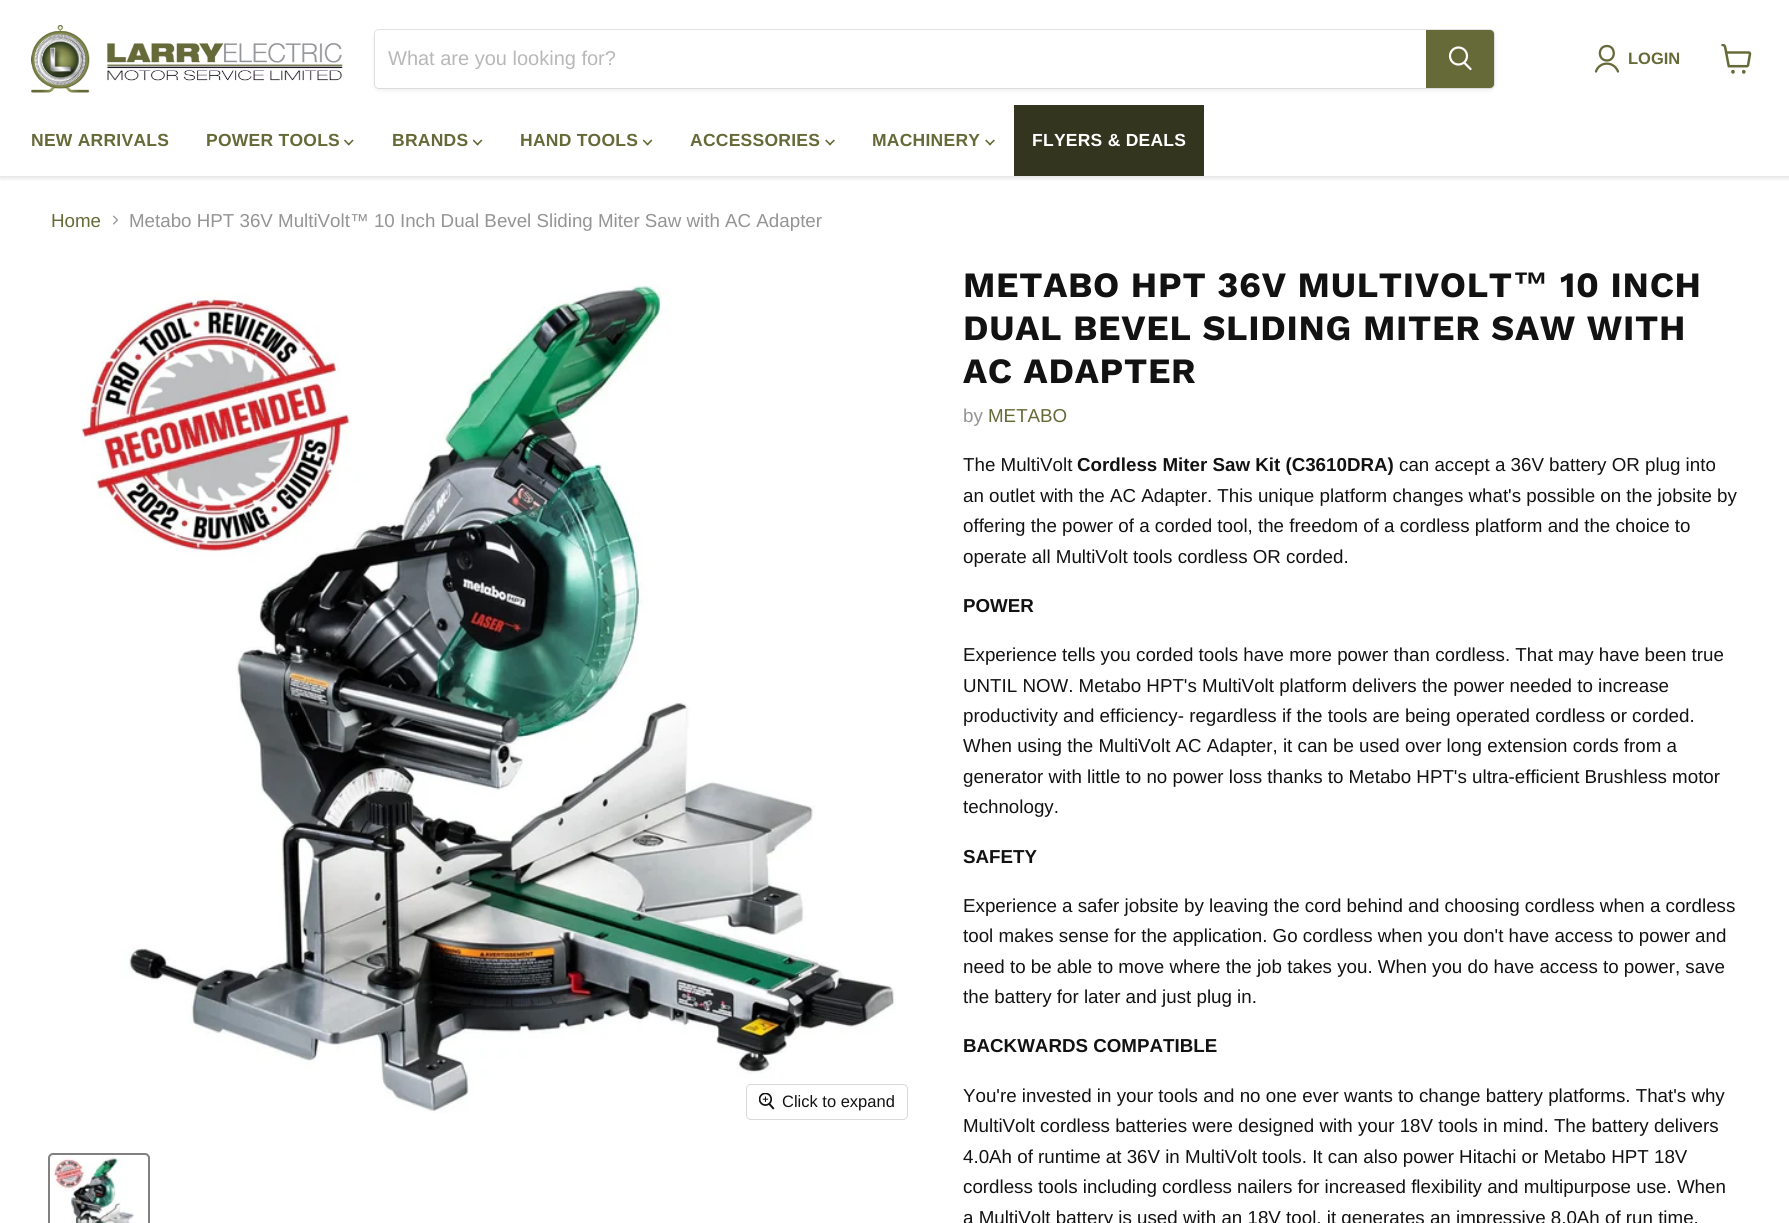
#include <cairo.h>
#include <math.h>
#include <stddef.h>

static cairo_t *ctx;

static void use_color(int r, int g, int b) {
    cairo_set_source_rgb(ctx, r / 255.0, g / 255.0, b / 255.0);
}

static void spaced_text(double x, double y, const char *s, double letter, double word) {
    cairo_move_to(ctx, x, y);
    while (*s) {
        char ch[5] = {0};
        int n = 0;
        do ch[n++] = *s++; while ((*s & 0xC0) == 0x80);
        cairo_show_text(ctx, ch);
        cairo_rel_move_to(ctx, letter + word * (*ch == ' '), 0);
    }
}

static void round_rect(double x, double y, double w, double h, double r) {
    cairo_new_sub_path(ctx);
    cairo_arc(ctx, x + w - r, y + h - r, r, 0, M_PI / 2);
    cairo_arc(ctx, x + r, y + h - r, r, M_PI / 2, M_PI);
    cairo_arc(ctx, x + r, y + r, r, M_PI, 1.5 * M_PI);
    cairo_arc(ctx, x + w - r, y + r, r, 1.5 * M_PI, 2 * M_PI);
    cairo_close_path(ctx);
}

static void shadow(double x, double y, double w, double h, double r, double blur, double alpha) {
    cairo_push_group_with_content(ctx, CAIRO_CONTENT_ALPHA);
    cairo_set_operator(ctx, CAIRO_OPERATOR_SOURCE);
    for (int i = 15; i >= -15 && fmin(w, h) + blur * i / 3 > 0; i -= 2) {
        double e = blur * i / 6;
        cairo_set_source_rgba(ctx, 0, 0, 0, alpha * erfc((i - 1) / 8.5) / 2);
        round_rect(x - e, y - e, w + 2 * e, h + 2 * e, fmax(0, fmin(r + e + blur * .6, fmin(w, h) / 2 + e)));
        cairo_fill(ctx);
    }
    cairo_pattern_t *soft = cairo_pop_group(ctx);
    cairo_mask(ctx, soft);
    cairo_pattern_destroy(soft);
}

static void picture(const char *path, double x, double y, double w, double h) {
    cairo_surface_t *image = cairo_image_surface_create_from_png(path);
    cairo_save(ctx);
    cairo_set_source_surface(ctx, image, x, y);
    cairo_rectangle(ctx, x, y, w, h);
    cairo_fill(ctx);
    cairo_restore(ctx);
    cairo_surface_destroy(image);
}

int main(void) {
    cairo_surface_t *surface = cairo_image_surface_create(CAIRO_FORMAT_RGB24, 1789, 1223);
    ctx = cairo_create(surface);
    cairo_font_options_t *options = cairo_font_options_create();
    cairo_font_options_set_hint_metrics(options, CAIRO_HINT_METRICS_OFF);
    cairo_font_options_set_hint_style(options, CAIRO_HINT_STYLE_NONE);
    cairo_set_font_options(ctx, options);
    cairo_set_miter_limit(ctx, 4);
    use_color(255, 255, 255);
    cairo_paint(ctx);
    cairo_save(ctx);
    cairo_rectangle(ctx, 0, 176, 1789, 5);
    cairo_clip(ctx);
    use_color(128, 128, 128);
    shadow(0, 1, 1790, 177, 0, 2.5, 0.25);
    cairo_restore(ctx);
    picture("img1.png", 31, 25, 312, 68);
    use_color(128, 128, 128);
    shadow(374, 31, 1121, 60, 5, 2, 0.11);
    round_rect(374.5, 29.5, 1120, 59, 4.5);
    cairo_set_source_rgba(ctx, 0.502, 0.502, 0.502, 0.2);
    cairo_set_line_width(ctx, 1);
    cairo_stroke(ctx);
    use_color(255, 255, 255);
    cairo_new_path(ctx);
    cairo_move_to(ctx, 379, 30);
    cairo_line_to(ctx, 1426, 30);
    cairo_line_to(ctx, 1426, 88);
    cairo_line_to(ctx, 379, 88);
    cairo_curve_to(ctx, 377, 88, 375, 86, 375, 84);
    cairo_line_to(ctx, 375, 34);
    cairo_curve_to(ctx, 375, 32, 377, 30, 379, 30);
    cairo_close_path(ctx);
    cairo_fill(ctx);
    cairo_select_font_face(ctx, "Liberation Sans", CAIRO_FONT_SLANT_NORMAL, CAIRO_FONT_WEIGHT_NORMAL);
    cairo_set_font_size(ctx, 20);
    use_color(184, 184, 184);
    cairo_move_to(ctx, 388, 65);
    cairo_show_text(ctx, "What are you looking for?");
    use_color(102, 106, 56);
    cairo_new_path(ctx);
    cairo_move_to(ctx, 1426.5, 30.5);
    cairo_line_to(ctx, 1490, 30.5);
    cairo_curve_to(ctx, 1492, 30.5, 1493.5, 32, 1493.5, 34);
    cairo_line_to(ctx, 1493.5, 84);
    cairo_curve_to(ctx, 1493.5, 86, 1492, 87.5, 1490, 87.5);
    cairo_line_to(ctx, 1426.5, 87.5);
    cairo_close_path(ctx);
    cairo_fill_preserve(ctx);
    cairo_stroke(ctx);
    cairo_new_path(ctx);
    cairo_move_to(ctx, 1470.5, 69);
    cairo_line_to(ctx, 1464.5, 63);
    use_color(255, 255, 255);
    cairo_set_line_width(ctx, 2.2);
    cairo_set_line_cap(ctx, CAIRO_LINE_CAP_ROUND);
    cairo_stroke(ctx);
    cairo_arc(ctx, 1458.5, 56, 8.5, 0, 2 * M_PI);
    cairo_set_line_cap(ctx, CAIRO_LINE_CAP_BUTT);
    cairo_stroke(ctx);
    cairo_new_path(ctx);
    cairo_move_to(ctx, 1607, 60.5);
    cairo_curve_to(ctx, 1616, 60.5, 1616, 46, 1607, 46);
    cairo_curve_to(ctx, 1597.5, 46, 1597.5, 60.5, 1607, 60.5);
    cairo_close_path(ctx);
    cairo_move_to(ctx, 1618, 71.5);
    cairo_curve_to(ctx, 1614, 61, 1599.5, 61, 1596, 71.5);
    use_color(102, 106, 56);
    cairo_set_line_width(ctx, 2.3);
    cairo_set_line_cap(ctx, CAIRO_LINE_CAP_ROUND);
    cairo_set_line_join(ctx, CAIRO_LINE_JOIN_ROUND);
    cairo_stroke(ctx);
    cairo_select_font_face(ctx, "Liberation Sans", CAIRO_FONT_SLANT_NORMAL, CAIRO_FONT_WEIGHT_BOLD);
    cairo_set_font_size(ctx, 16.5);
    cairo_move_to(ctx, 1628, 64);
    cairo_show_text(ctx, "LOGIN");
    picture("img2.png", 1721, 44, 31, 30);
    cairo_set_font_size(ctx, 17.5);
    spaced_text(31, 146, "NEW ARRIVALS", 0.25, 0);
    spaced_text(206, 146, "POWER TOOLS", 0.25, 0);
    picture("img3.png", 344, 139, 10, 7);
    spaced_text(392, 146, "BRANDS", 0.25, 0);
    picture("img4.png", 473, 139, 10, 7);
    spaced_text(520, 146, "HAND TOOLS", 0.25, 0);
    picture("img4.png", 643, 139, 10, 7);
    spaced_text(690, 146, "ACCESSORIES", 0.25, 0);
    picture("img5.png", 825, 139, 10, 7);
    spaced_text(872, 146, "MACHINERY", 0.25, 0);
    picture("img5.png", 985, 139, 10, 7);
    use_color(51, 53, 31);
    cairo_rectangle(ctx, 1014, 105, 190, 71);
    cairo_fill(ctx);
    use_color(255, 255, 255);
    spaced_text(1032, 146, "FLYERS & DEALS", 0.25, 0);
    cairo_select_font_face(ctx, "Liberation Sans", CAIRO_FONT_SLANT_NORMAL, CAIRO_FONT_WEIGHT_NORMAL);
    cairo_set_font_size(ctx, 18.75);
    use_color(102, 106, 56);
    cairo_move_to(ctx, 51, 227);
    cairo_show_text(ctx, "Home");
    picture("img6.png", 113, 215, 5, 10);
    use_color(148, 148, 148);
    cairo_move_to(ctx, 129, 227);
    cairo_show_text(ctx, "Metabo HPT 36V MultiVolt™ 10 Inch Dual Bevel Sliding Miter Saw with AC Adapter");
    picture("img7.png", 81, 284, 815, 829);
    round_rect(746.5, 1084.5, 161, 35, 4.5);
    use_color(217, 217, 217);
    cairo_set_line_width(ctx, 1);
    cairo_set_line_cap(ctx, CAIRO_LINE_CAP_BUTT);
    cairo_set_line_join(ctx, CAIRO_LINE_JOIN_MITER);
    cairo_stroke(ctx);
    picture("img8.png", 759, 1093, 16, 17);
    cairo_set_font_size(ctx, 16.5);
    use_color(18, 18, 18);
    cairo_move_to(ctx, 782, 1107);
    cairo_show_text(ctx, "Click to expand");
    round_rect(49, 1154, 100, 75, 4);
    use_color(129, 129, 129);
    cairo_set_line_width(ctx, 2);
    cairo_stroke(ctx);
    picture("img9.png", 51, 1156, 83, 67);
    cairo_select_font_face(ctx, "Work Sans", CAIRO_FONT_SLANT_NORMAL, CAIRO_FONT_WEIGHT_BOLD);
    cairo_set_font_size(ctx, 35.6);
    use_color(18, 18, 18);
    spaced_text(963, 297, "METABO HPT 36V MULTIVOLT", 0.7, 0);
    cairo_select_font_face(ctx, "Liberation Sans", CAIRO_FONT_SLANT_NORMAL, CAIRO_FONT_WEIGHT_BOLD);
    spaced_text(1513, 297, "™", 0.7, 0);
    cairo_select_font_face(ctx, "Work Sans", CAIRO_FONT_SLANT_NORMAL, CAIRO_FONT_WEIGHT_BOLD);
    spaced_text(1560, 297, "10 INCH", 0.7, 0);
    spaced_text(963, 340, "DUAL BEVEL SLIDING MITER SAW WITH", 0.7, 0);
    spaced_text(963, 383, "AC ADAPTER", 0.7, 0);
    cairo_select_font_face(ctx, "Liberation Sans", CAIRO_FONT_SLANT_NORMAL, CAIRO_FONT_WEIGHT_NORMAL);
    cairo_set_font_size(ctx, 18.75);
    use_color(148, 148, 148);
    cairo_move_to(ctx, 963, 422);
    cairo_show_text(ctx, "by");
    use_color(102, 106, 56);
    cairo_move_to(ctx, 988, 422);
    cairo_show_text(ctx, "METABO");
    use_color(18, 18, 18);
    cairo_move_to(ctx, 963, 471);
    cairo_show_text(ctx, "The MultiVolt");
    cairo_select_font_face(ctx, "Liberation Sans", CAIRO_FONT_SLANT_NORMAL, CAIRO_FONT_WEIGHT_BOLD);
    cairo_move_to(ctx, 1077, 471);
    cairo_show_text(ctx, "Cordless Miter Saw Kit (C3610DRA)");
    cairo_select_font_face(ctx, "Liberation Sans", CAIRO_FONT_SLANT_NORMAL, CAIRO_FONT_WEIGHT_NORMAL);
    cairo_move_to(ctx, 1399, 471);
    cairo_show_text(ctx, "can accept a 36V battery OR plug into");
    cairo_move_to(ctx, 963, 502);
    cairo_show_text(ctx, "an outlet with the AC Adapter. This unique platform changes what's possible on the jobsite by");
    cairo_move_to(ctx, 963, 532);
    cairo_show_text(ctx, "offering the power of a corded tool, the freedom of a cordless platform and the choice to");
    cairo_move_to(ctx, 963, 563);
    cairo_show_text(ctx, "operate all MultiVolt tools cordless OR corded.");
    cairo_select_font_face(ctx, "Liberation Sans", CAIRO_FONT_SLANT_NORMAL, CAIRO_FONT_WEIGHT_BOLD);
    cairo_move_to(ctx, 963, 612);
    cairo_show_text(ctx, "POWER");
    cairo_select_font_face(ctx, "Liberation Sans", CAIRO_FONT_SLANT_NORMAL, CAIRO_FONT_WEIGHT_NORMAL);
    cairo_move_to(ctx, 963, 661);
    cairo_show_text(ctx, "Experience tells you corded tools have more power than cordless. That may have been true");
    cairo_move_to(ctx, 963, 692);
    cairo_show_text(ctx, "UNTIL NOW. Metabo HPT's MultiVolt platform delivers the power needed to increase");
    cairo_move_to(ctx, 963, 722);
    cairo_show_text(ctx, "productivity and efficiency- regardless if the tools are being operated cordless or corded.");
    cairo_move_to(ctx, 963, 752);
    cairo_show_text(ctx, "When using the MultiVolt AC Adapter, it can be used over long extension cords from a");
    cairo_move_to(ctx, 963, 783);
    cairo_show_text(ctx, "generator with little to no power loss thanks to Metabo HPT's ultra-efficient Brushless motor");
    cairo_move_to(ctx, 963, 813);
    cairo_show_text(ctx, "technology.");
    cairo_select_font_face(ctx, "Liberation Sans", CAIRO_FONT_SLANT_NORMAL, CAIRO_FONT_WEIGHT_BOLD);
    cairo_move_to(ctx, 963, 863);
    cairo_show_text(ctx, "SAFETY");
    cairo_select_font_face(ctx, "Liberation Sans", CAIRO_FONT_SLANT_NORMAL, CAIRO_FONT_WEIGHT_NORMAL);
    cairo_move_to(ctx, 963, 912);
    cairo_show_text(ctx, "Experience a safer jobsite by leaving the cord behind and choosing cordless when a cordless");
    cairo_move_to(ctx, 963, 942);
    cairo_show_text(ctx, "tool makes sense for the application. Go cordless when you don't have access to power and");
    cairo_move_to(ctx, 963, 973);
    cairo_show_text(ctx, "need to be able to move where the job takes you. When you do have access to power, save");
    cairo_move_to(ctx, 963, 1003);
    cairo_show_text(ctx, "the battery for later and just plug in.");
    cairo_select_font_face(ctx, "Liberation Sans", CAIRO_FONT_SLANT_NORMAL, CAIRO_FONT_WEIGHT_BOLD);
    cairo_move_to(ctx, 963, 1052);
    cairo_show_text(ctx, "BACKWARDS COMPATIBLE");
    cairo_select_font_face(ctx, "Liberation Sans", CAIRO_FONT_SLANT_NORMAL, CAIRO_FONT_WEIGHT_NORMAL);
    cairo_move_to(ctx, 963, 1102);
    cairo_show_text(ctx, "You're invested in your tools and no one ever wants to change battery platforms. That's why");
    cairo_move_to(ctx, 963, 1132);
    cairo_show_text(ctx, "MultiVolt cordless batteries were designed with your 18V tools in mind. The battery delivers");
    cairo_move_to(ctx, 963, 1163);
    cairo_show_text(ctx, "4.0Ah of runtime at 36V in MultiVolt tools. It can also power Hitachi or Metabo HPT 18V");
    cairo_move_to(ctx, 963, 1193);
    cairo_show_text(ctx, "cordless tools including cordless nailers for increased flexibility and multipurpose use. When");
    cairo_move_to(ctx, 963, 1224);
    cairo_show_text(ctx, "a MultiVolt battery is used with an 18V tool, it generates an impressive 8.0Ah of run time.");
    cairo_surface_write_to_png(surface, "result.png");
    cairo_font_options_destroy(options);
    cairo_destroy(ctx);
    cairo_surface_destroy(surface);
    return 0;
}
